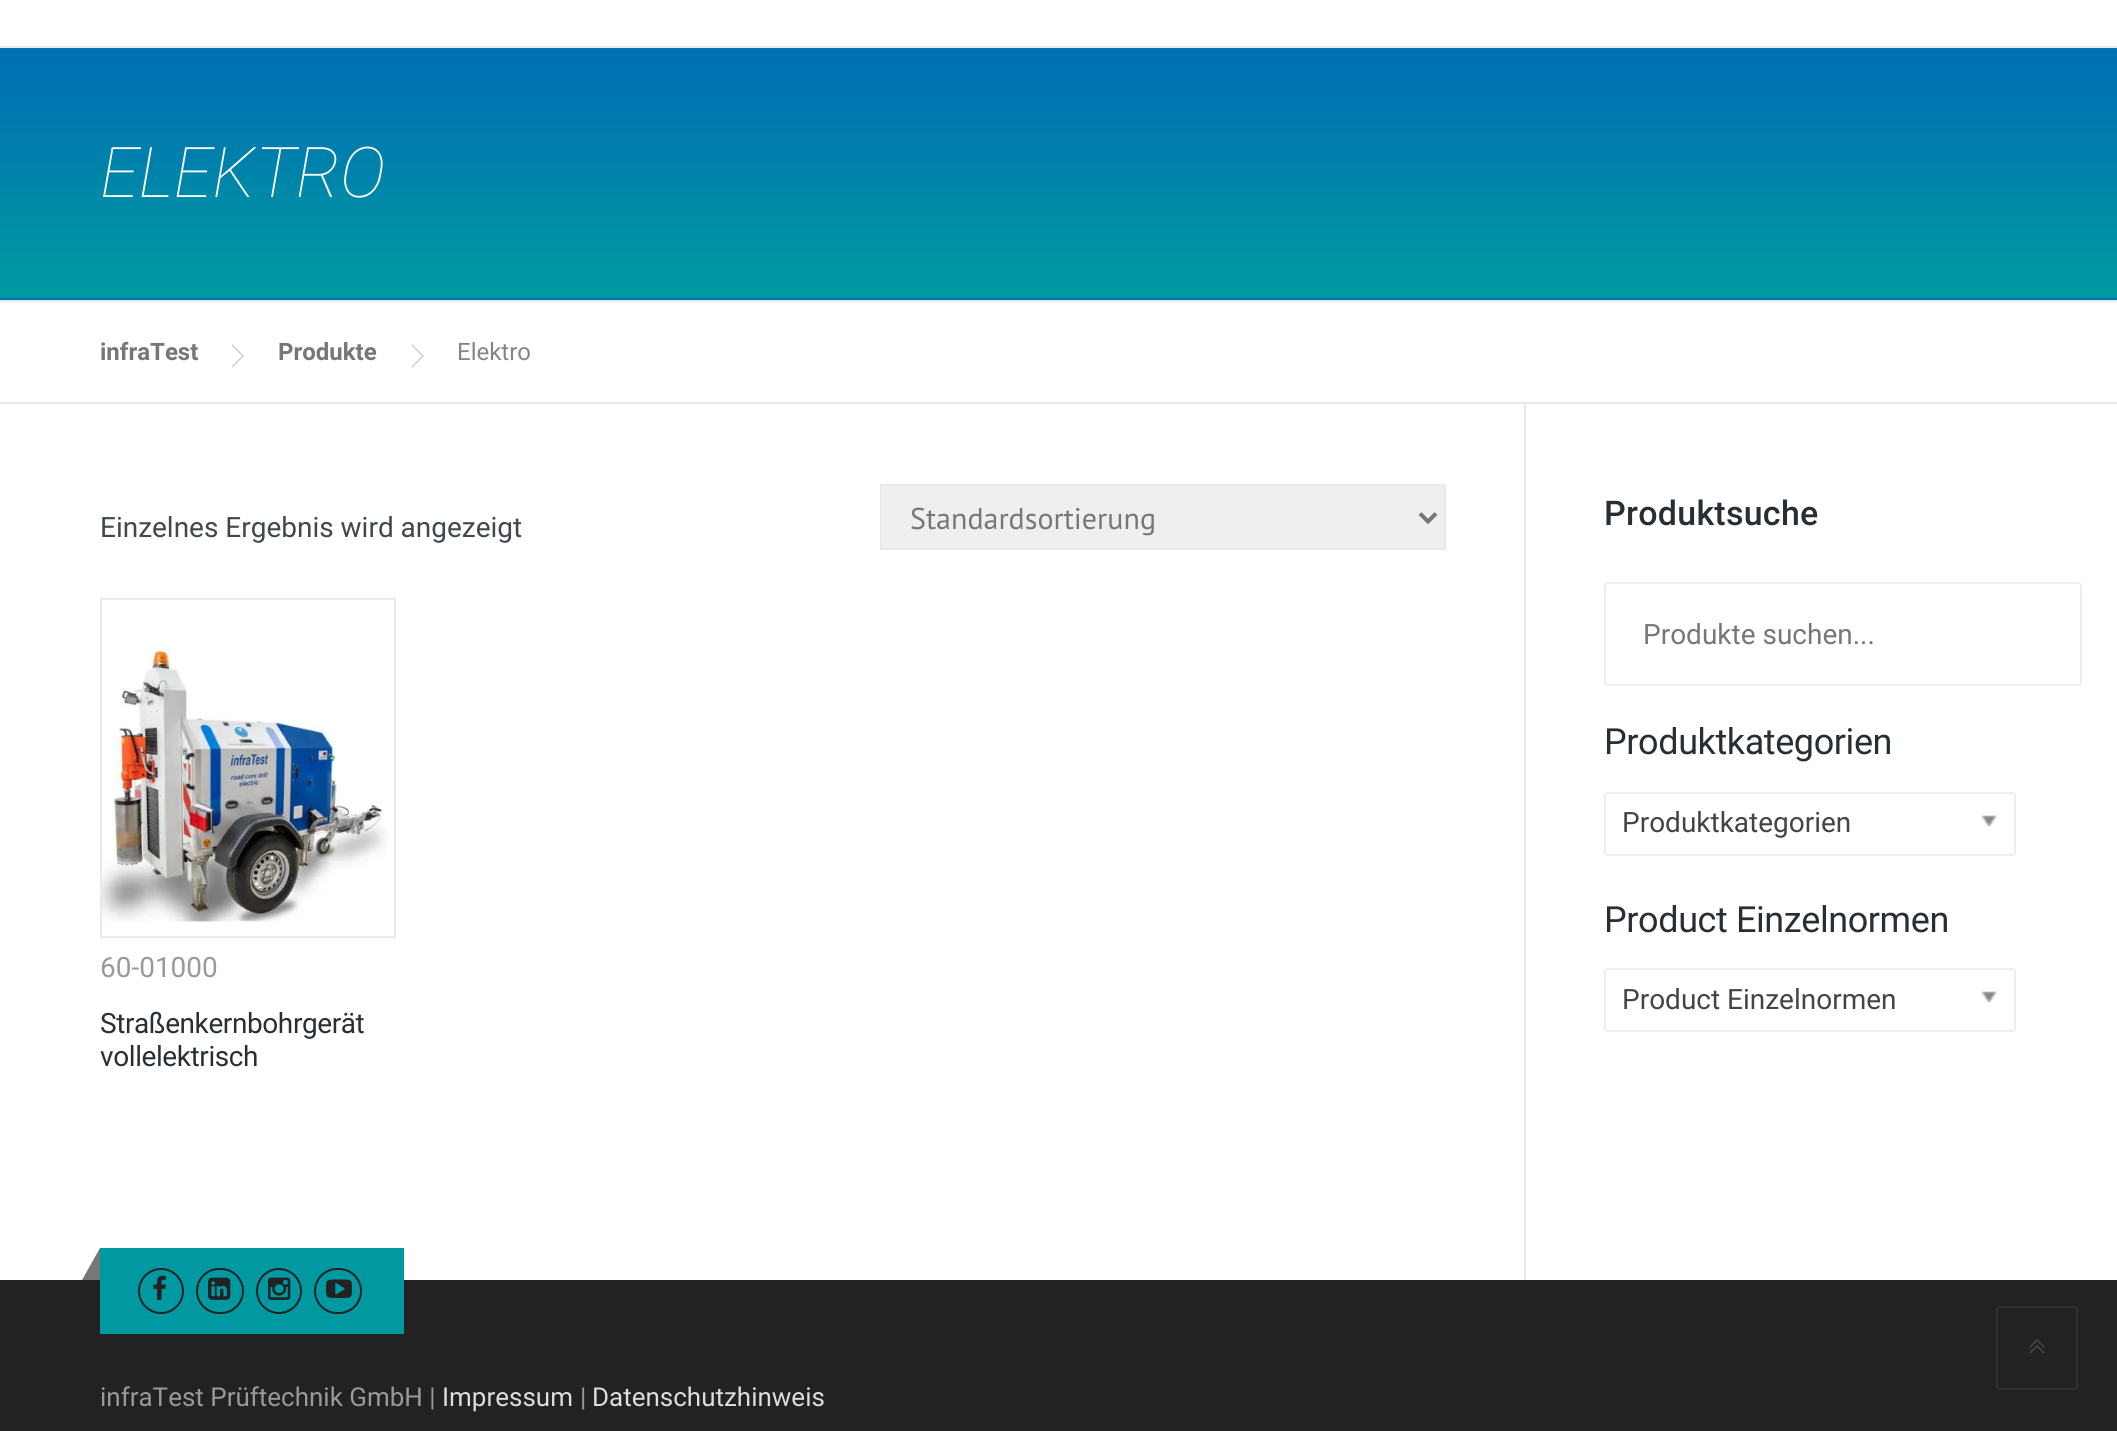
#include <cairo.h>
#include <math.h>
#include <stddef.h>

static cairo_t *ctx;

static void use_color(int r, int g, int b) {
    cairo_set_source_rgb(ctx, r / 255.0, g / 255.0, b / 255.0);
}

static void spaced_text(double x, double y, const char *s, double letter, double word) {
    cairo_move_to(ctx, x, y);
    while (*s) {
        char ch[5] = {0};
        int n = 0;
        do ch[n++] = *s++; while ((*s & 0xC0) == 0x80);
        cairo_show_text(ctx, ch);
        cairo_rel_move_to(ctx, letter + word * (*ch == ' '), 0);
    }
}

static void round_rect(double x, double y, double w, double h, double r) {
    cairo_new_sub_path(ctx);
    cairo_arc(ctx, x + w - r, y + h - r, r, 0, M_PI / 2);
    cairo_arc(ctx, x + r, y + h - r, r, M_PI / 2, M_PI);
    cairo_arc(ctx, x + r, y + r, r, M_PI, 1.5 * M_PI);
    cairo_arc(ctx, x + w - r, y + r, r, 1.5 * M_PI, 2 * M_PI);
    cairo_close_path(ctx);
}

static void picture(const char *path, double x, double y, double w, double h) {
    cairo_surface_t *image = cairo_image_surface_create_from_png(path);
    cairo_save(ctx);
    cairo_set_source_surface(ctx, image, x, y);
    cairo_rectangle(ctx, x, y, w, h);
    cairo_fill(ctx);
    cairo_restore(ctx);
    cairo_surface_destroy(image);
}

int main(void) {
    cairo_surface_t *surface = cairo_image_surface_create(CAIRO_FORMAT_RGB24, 2117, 1431);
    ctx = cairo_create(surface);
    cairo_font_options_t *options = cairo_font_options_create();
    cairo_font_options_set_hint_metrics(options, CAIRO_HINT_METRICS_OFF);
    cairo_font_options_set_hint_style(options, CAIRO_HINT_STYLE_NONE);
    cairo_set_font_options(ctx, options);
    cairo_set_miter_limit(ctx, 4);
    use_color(255, 255, 255);
    cairo_paint(ctx);
    picture("img1.png", 0, 48, 2117, 252);
    use_color(233, 233, 233);
    cairo_rectangle(ctx, 0, 46, 2117, 2);
    cairo_fill(ctx);
    cairo_rectangle(ctx, 0, 300, 2117, 2);
    cairo_fill(ctx);
    cairo_select_font_face(ctx, "Roboto Thin", CAIRO_FONT_SLANT_ITALIC, CAIRO_FONT_WEIGHT_NORMAL);
    cairo_set_font_size(ctx, 70);
    use_color(255, 255, 255);
    spaced_text(100, 197, "ELEKTRO", -0.4, 0);
    use_color(233, 233, 233);
    cairo_rectangle(ctx, 0, 402, 2117, 2);
    cairo_fill(ctx);
    cairo_select_font_face(ctx, "Roboto", CAIRO_FONT_SLANT_NORMAL, CAIRO_FONT_WEIGHT_BOLD);
    cairo_set_font_size(ctx, 24);
    use_color(119, 119, 119);
    cairo_move_to(ctx, 100, 360);
    cairo_show_text(ctx, "infraTest");
    use_color(204, 204, 204);
    cairo_new_path(ctx);
    cairo_move_to(ctx, 232, 368);
    cairo_line_to(ctx, 232, 344);
    cairo_line_to(ctx, 244, 356);
    cairo_close_path(ctx);
    cairo_fill(ctx);
    use_color(255, 255, 255);
    cairo_new_path(ctx);
    cairo_move_to(ctx, 232, 366);
    cairo_line_to(ctx, 232, 346);
    cairo_line_to(ctx, 242, 356);
    cairo_close_path(ctx);
    cairo_fill(ctx);
    use_color(119, 119, 119);
    cairo_move_to(ctx, 278, 360);
    cairo_show_text(ctx, "Produkte");
    use_color(204, 204, 204);
    cairo_new_path(ctx);
    cairo_move_to(ctx, 412, 368);
    cairo_line_to(ctx, 412, 344);
    cairo_line_to(ctx, 424, 356);
    cairo_close_path(ctx);
    cairo_fill(ctx);
    use_color(255, 255, 255);
    cairo_new_path(ctx);
    cairo_move_to(ctx, 412, 366);
    cairo_line_to(ctx, 412, 346);
    cairo_line_to(ctx, 422, 356);
    cairo_close_path(ctx);
    cairo_fill(ctx);
    cairo_select_font_face(ctx, "Roboto", CAIRO_FONT_SLANT_NORMAL, CAIRO_FONT_WEIGHT_NORMAL);
    use_color(133, 133, 133);
    cairo_move_to(ctx, 457, 360);
    cairo_show_text(ctx, "Elektro");
    use_color(233, 233, 233);
    cairo_rectangle(ctx, 1524, 404, 2, 876);
    cairo_fill(ctx);
    cairo_set_font_size(ctx, 28);
    use_color(63, 72, 78);
    cairo_move_to(ctx, 100, 537);
    cairo_show_text(ctx, "Einzelnes Ergebnis wird angezeigt");
    use_color(239, 239, 239);
    cairo_rectangle(ctx, 881, 485, 564, 64);
    cairo_fill_preserve(ctx);
    use_color(233, 233, 233);
    cairo_stroke(ctx);
    cairo_new_path(ctx);
    cairo_move_to(ctx, 1420, 513.5);
    cairo_line_to(ctx, 1428, 521.5);
    cairo_line_to(ctx, 1436, 513.5);
    use_color(119, 119, 119);
    cairo_set_line_width(ctx, 4);
    cairo_stroke(ctx);
    cairo_select_font_face(ctx, "PT Sans", CAIRO_FONT_SLANT_NORMAL, CAIRO_FONT_WEIGHT_NORMAL);
    cairo_set_font_size(ctx, 30);
    cairo_move_to(ctx, 910, 529);
    cairo_show_text(ctx, "Standardsortierung");
    cairo_rectangle(ctx, 101, 599, 294, 338);
    use_color(233, 233, 233);
    cairo_set_line_width(ctx, 2);
    cairo_stroke(ctx);
    picture("img2.png", 102, 648, 287, 274);
    cairo_select_font_face(ctx, "Roboto", CAIRO_FONT_SLANT_NORMAL, CAIRO_FONT_WEIGHT_NORMAL);
    cairo_set_font_size(ctx, 28);
    use_color(153, 153, 153);
    cairo_move_to(ctx, 100, 977);
    cairo_show_text(ctx, "60-01000");
    use_color(40, 47, 52);
    spaced_text(100, 1033, "Straßenkernbohrgerät", -0.4, 0);
    spaced_text(100, 1066, "vollelektrisch", -0.4, 0);
    cairo_select_font_face(ctx, "Roboto Medium", CAIRO_FONT_SLANT_NORMAL, CAIRO_FONT_WEIGHT_NORMAL);
    cairo_set_font_size(ctx, 34);
    spaced_text(1604, 525, "Produktsuche", 0.25, 0);
    round_rect(1605, 583, 476, 102, 3);
    use_color(238, 238, 238);
    cairo_stroke(ctx);
    cairo_select_font_face(ctx, "Roboto", CAIRO_FONT_SLANT_NORMAL, CAIRO_FONT_WEIGHT_NORMAL);
    cairo_set_font_size(ctx, 28);
    use_color(119, 119, 119);
    cairo_move_to(ctx, 1643, 644);
    cairo_show_text(ctx, "Produkte suchen...");
    cairo_set_font_size(ctx, 36);
    use_color(40, 47, 52);
    spaced_text(1604, 754, "Produktkategorien", -0.4, 0);
    round_rect(1605, 793, 410, 62, 3);
    use_color(238, 238, 238);
    cairo_stroke(ctx);
    cairo_set_font_size(ctx, 28);
    use_color(68, 68, 68);
    cairo_move_to(ctx, 1622, 832);
    cairo_show_text(ctx, "Produktkategorien");
    picture("img3.png", 1981, 815, 16, 12);
    cairo_set_font_size(ctx, 36);
    use_color(40, 47, 52);
    spaced_text(1604, 932, "Product Einzelnormen", -0.4, 0);
    round_rect(1605, 969, 410, 62, 3);
    use_color(238, 238, 238);
    cairo_stroke(ctx);
    cairo_set_font_size(ctx, 28);
    use_color(68, 68, 68);
    cairo_move_to(ctx, 1622, 1009);
    cairo_show_text(ctx, "Product Einzelnormen");
    picture("img3.png", 1981, 991, 16, 12);
    use_color(34, 34, 34);
    cairo_rectangle(ctx, 0, 1280, 2117, 151);
    cairo_fill(ctx);
    use_color(0, 153, 161);
    cairo_rectangle(ctx, 100, 1248, 304, 86);
    cairo_fill(ctx);
    use_color(119, 119, 119);
    cairo_new_path(ctx);
    cairo_move_to(ctx, 100, 1248);
    cairo_line_to(ctx, 100, 1280);
    cairo_line_to(ctx, 82, 1280);
    cairo_close_path(ctx);
    cairo_fill(ctx);
    cairo_arc(ctx, 161, 1291, 22, 0, 2 * M_PI);
    use_color(34, 34, 34);
    cairo_stroke(ctx);
    picture("img4.png", 153, 1275, 13, 25);
    round_rect(197, 1269, 46, 44, 22);
    cairo_stroke(ctx);
    picture("img5.png", 208, 1277, 23, 23);
    cairo_arc(ctx, 279, 1291, 22, 0, 2 * M_PI);
    cairo_stroke(ctx);
    picture("img6.png", 268, 1277, 23, 23);
    round_rect(315, 1269, 46, 44, 22);
    cairo_stroke(ctx);
    picture("img7.png", 326, 1279, 26, 19);
    cairo_set_font_size(ctx, 26);
    use_color(153, 153, 153);
    cairo_move_to(ctx, 100, 1406);
    cairo_show_text(ctx, "infraTest Prüftechnik GmbH |");
    use_color(221, 221, 221);
    cairo_move_to(ctx, 442, 1406);
    cairo_show_text(ctx, "Impressum");
    use_color(153, 153, 153);
    cairo_move_to(ctx, 580, 1406);
    cairo_show_text(ctx, "|");
    use_color(221, 221, 221);
    cairo_move_to(ctx, 592, 1406);
    cairo_show_text(ctx, "Datenschutzhinweis");
    round_rect(1997, 1307, 80, 82, 3);
    use_color(48, 48, 48);
    cairo_stroke(ctx);
    picture("img8.png", 2029, 1339, 16, 15);
    cairo_surface_write_to_png(surface, "result.png");
    cairo_font_options_destroy(options);
    cairo_destroy(ctx);
    cairo_surface_destroy(surface);
    return 0;
}
